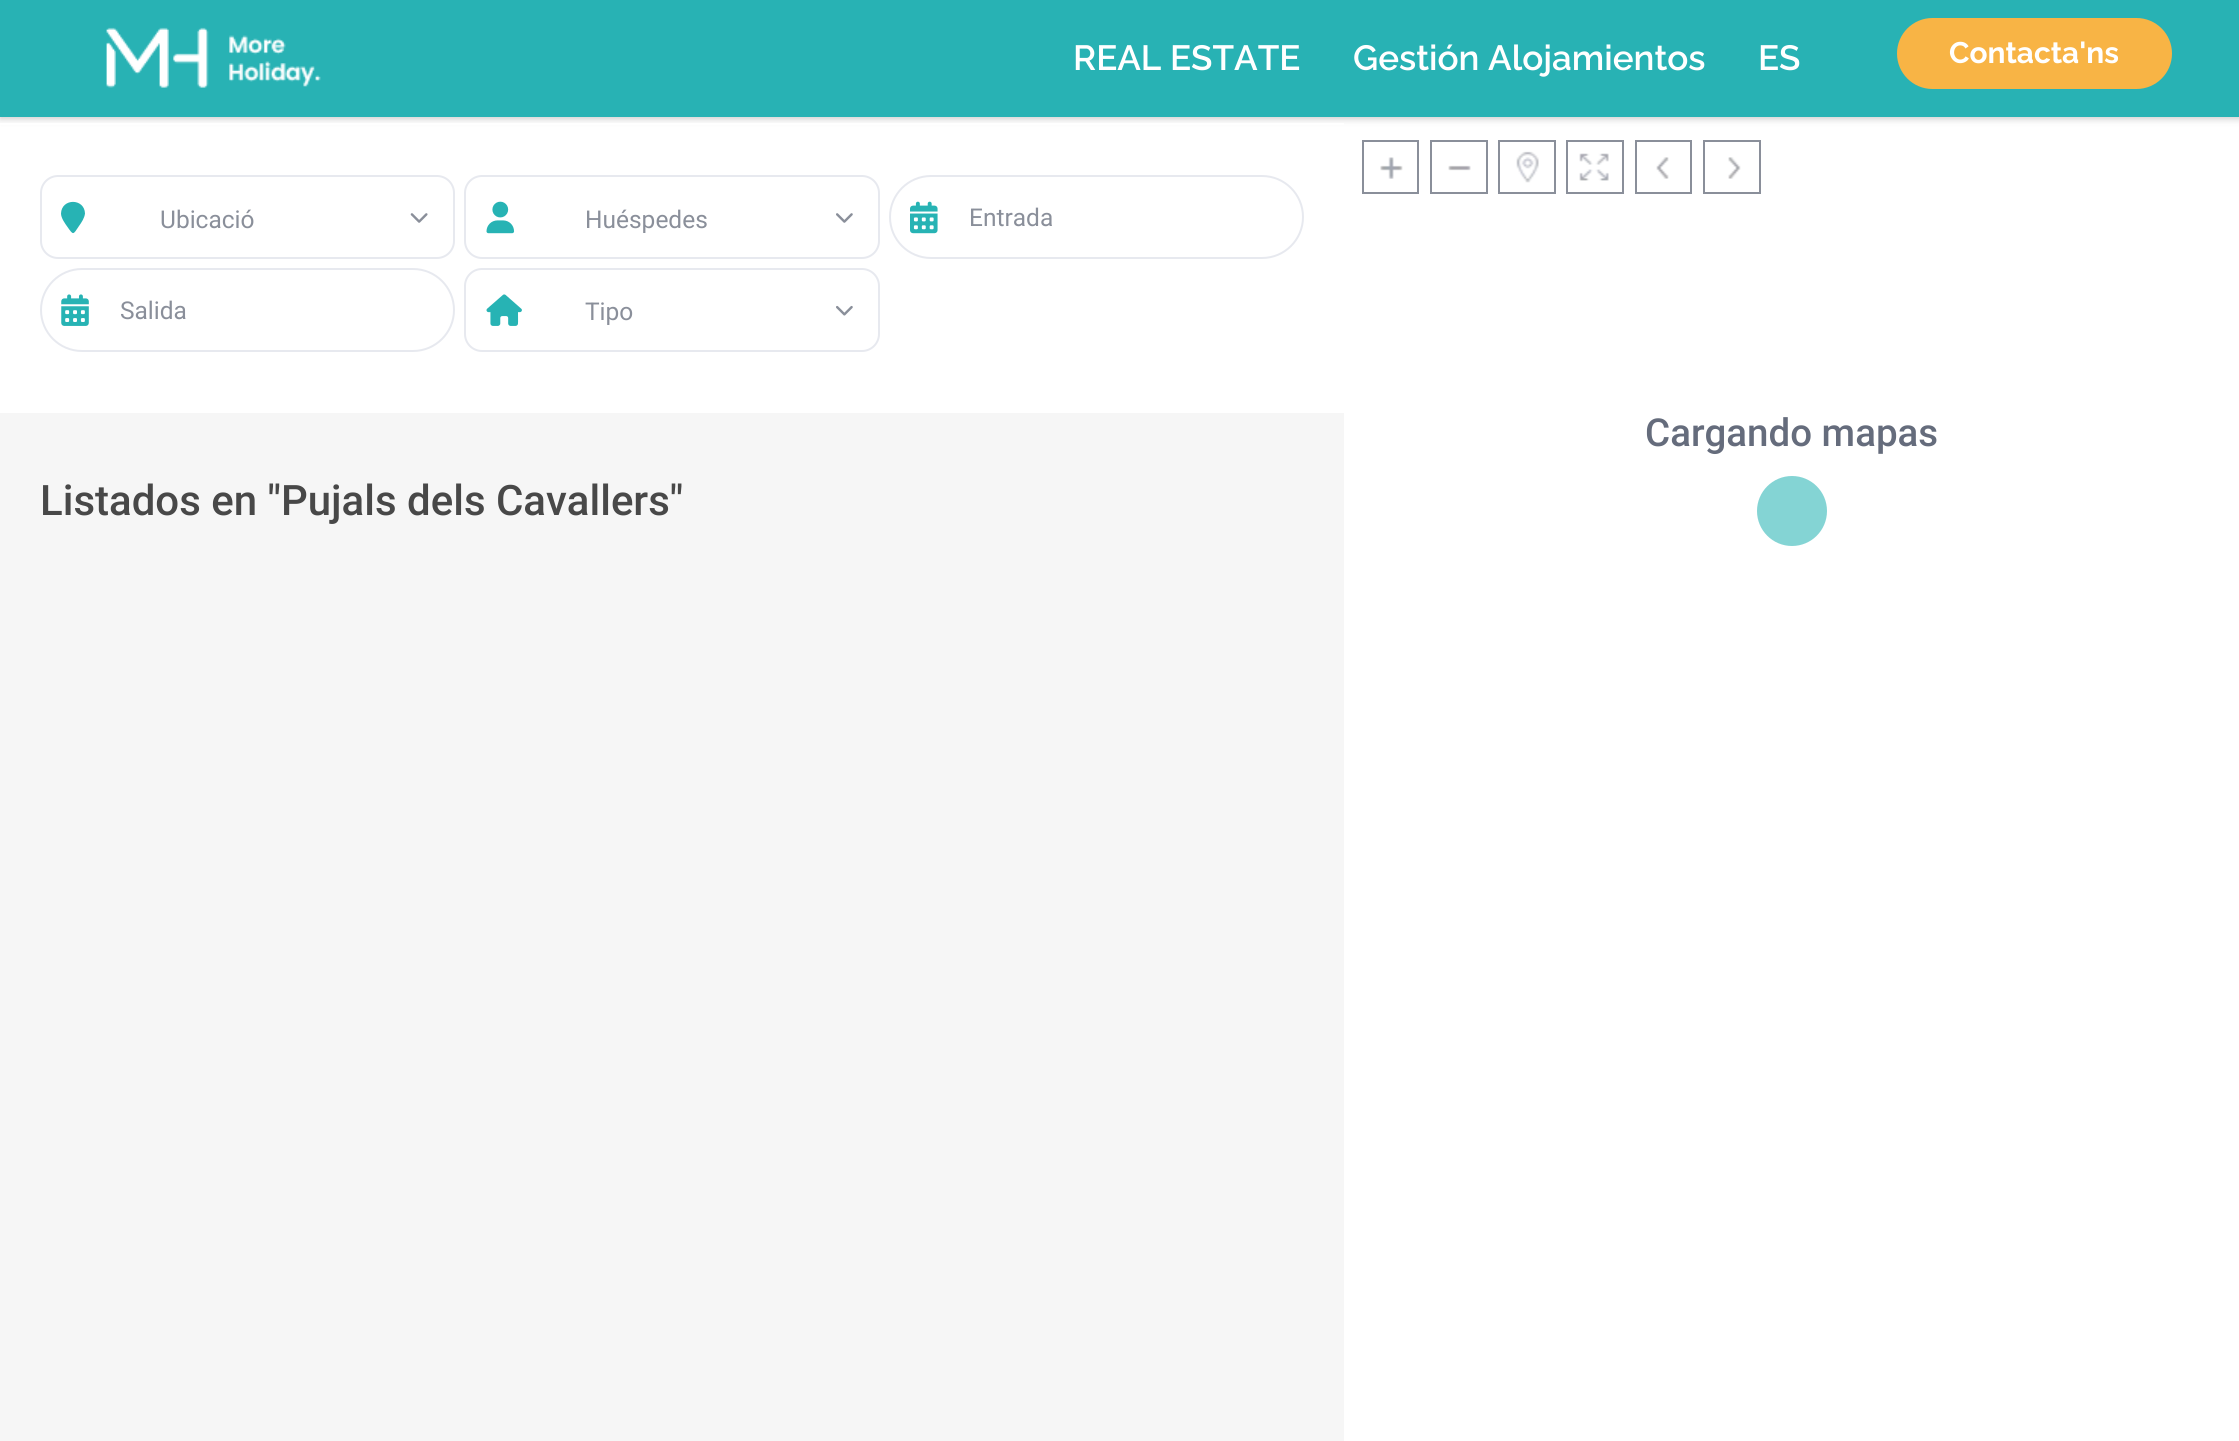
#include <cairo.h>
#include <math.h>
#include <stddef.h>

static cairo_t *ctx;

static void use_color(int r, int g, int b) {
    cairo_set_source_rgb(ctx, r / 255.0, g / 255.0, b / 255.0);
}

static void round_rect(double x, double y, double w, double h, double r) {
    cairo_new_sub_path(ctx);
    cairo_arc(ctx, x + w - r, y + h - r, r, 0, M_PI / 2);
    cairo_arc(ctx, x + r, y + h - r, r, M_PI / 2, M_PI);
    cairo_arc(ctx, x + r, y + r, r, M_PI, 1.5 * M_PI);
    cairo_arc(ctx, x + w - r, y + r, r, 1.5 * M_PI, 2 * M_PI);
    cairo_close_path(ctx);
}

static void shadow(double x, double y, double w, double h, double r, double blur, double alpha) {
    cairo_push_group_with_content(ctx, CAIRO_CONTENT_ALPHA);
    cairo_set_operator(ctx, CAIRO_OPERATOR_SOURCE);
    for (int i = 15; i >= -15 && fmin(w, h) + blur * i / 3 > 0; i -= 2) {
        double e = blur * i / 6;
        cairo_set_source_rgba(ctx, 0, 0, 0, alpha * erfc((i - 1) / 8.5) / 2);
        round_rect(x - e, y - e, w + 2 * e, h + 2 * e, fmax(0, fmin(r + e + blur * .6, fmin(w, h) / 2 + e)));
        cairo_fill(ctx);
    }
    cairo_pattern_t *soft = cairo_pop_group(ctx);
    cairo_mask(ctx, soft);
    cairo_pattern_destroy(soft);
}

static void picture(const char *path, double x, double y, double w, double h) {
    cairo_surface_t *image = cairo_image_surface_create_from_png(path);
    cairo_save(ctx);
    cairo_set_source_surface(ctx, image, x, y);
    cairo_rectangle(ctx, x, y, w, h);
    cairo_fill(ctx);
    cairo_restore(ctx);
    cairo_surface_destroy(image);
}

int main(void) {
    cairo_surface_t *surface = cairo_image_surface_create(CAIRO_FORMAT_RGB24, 2239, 1441);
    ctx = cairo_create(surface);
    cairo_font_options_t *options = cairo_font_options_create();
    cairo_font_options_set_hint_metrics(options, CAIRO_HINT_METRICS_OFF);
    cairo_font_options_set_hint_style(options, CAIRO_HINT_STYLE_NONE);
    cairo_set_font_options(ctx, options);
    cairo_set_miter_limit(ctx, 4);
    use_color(255, 255, 255);
    cairo_paint(ctx);
    use_color(0, 0, 0);
    shadow(0, 2, 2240, 117, 0, 3.5, 0.2);
    use_color(40, 178, 180);
    cairo_rectangle(ctx, 0, 0, 2239, 117);
    cairo_fill(ctx);
    picture("img1.png", 106, 27, 215, 61);
    cairo_select_font_face(ctx, "Raleway SemiBold", CAIRO_FONT_SLANT_NORMAL, CAIRO_FONT_WEIGHT_NORMAL);
    cairo_set_font_size(ctx, 35);
    use_color(255, 255, 255);
    cairo_move_to(ctx, 1073, 70);
    cairo_show_text(ctx, "REAL ESTATE");
    cairo_move_to(ctx, 1353, 70);
    cairo_show_text(ctx, "Gestión Alojamientos");
    cairo_move_to(ctx, 1758, 70);
    cairo_show_text(ctx, "ES");
    use_color(248, 180, 69);
    round_rect(1897, 18, 275, 71, 35.5);
    cairo_fill(ctx);
    cairo_select_font_face(ctx, "Raleway", CAIRO_FONT_SLANT_NORMAL, CAIRO_FONT_WEIGHT_BOLD);
    cairo_set_font_size(ctx, 29.75);
    use_color(255, 255, 255);
    cairo_move_to(ctx, 1949, 63);
    cairo_show_text(ctx, "Contacta'ns");
    use_color(246, 246, 246);
    cairo_rectangle(ctx, 0, 413, 1344, 1028);
    cairo_fill(ctx);
    use_color(255, 255, 255);
    cairo_rectangle(ctx, 0, 123, 1344, 2);
    cairo_fill(ctx);
    round_rect(41, 176, 413, 82, 17);
    use_color(231, 233, 239);
    cairo_stroke(ctx);
    use_color(39, 179, 180);
    cairo_new_path(ctx);
    cairo_move_to(ctx, 85, 213.5);
    cairo_curve_to(ctx, 84.5, 218, 81.5, 222.5, 79, 226);
    cairo_curve_to(ctx, 73, 235, 73.5, 235.5, 67.5, 227);
    cairo_curve_to(ctx, 65, 223.5, 61, 218, 61, 213.5);
    cairo_curve_to(ctx, 61.5, 198, 84.5, 198, 85, 213.5);
    cairo_close_path(ctx);
    cairo_fill(ctx);
    cairo_select_font_face(ctx, "Roboto", CAIRO_FONT_SLANT_NORMAL, CAIRO_FONT_WEIGHT_NORMAL);
    cairo_set_font_size(ctx, 24.5);
    use_color(138, 143, 154);
    cairo_move_to(ctx, 160, 228);
    cairo_show_text(ctx, "Ubicació");
    picture("img2.png", 410, 213, 18, 10);
    round_rect(465, 176, 414, 82, 17);
    use_color(231, 233, 239);
    cairo_stroke(ctx);
    picture("img3.png", 486, 201, 29, 33);
    use_color(138, 143, 154);
    cairo_move_to(ctx, 585, 228);
    cairo_show_text(ctx, "Huéspedes");
    picture("img4.png", 836, 213, 17, 10);
    round_rect(890, 176, 413, 82, 41);
    use_color(231, 233, 239);
    cairo_stroke(ctx);
    picture("img5.png", 910, 201, 28, 33);
    use_color(138, 143, 154);
    cairo_move_to(ctx, 969, 226);
    cairo_show_text(ctx, "Entrada");
    round_rect(41, 269, 413, 82, 41);
    use_color(231, 233, 239);
    cairo_stroke(ctx);
    picture("img6.png", 61, 294, 28, 32);
    use_color(138, 143, 154);
    cairo_move_to(ctx, 120, 319);
    cairo_show_text(ctx, "Salida");
    round_rect(465, 269, 414, 82, 17);
    use_color(231, 233, 239);
    cairo_stroke(ctx);
    picture("img7.png", 486, 294, 36, 32);
    use_color(138, 143, 154);
    cairo_move_to(ctx, 585, 320);
    cairo_show_text(ctx, "Tipo");
    picture("img8.png", 836, 305, 17, 11);
    cairo_select_font_face(ctx, "Roboto Medium", CAIRO_FONT_SLANT_NORMAL, CAIRO_FONT_WEIGHT_NORMAL);
    cairo_set_font_size(ctx, 42);
    use_color(72, 72, 72);
    cairo_move_to(ctx, 40, 515);
    cairo_show_text(ctx, "Listados en \"Pujals dels Cavallers\"");
    picture("img9.png", 1380, 157, 23, 22);
    cairo_rectangle(ctx, 1363, 141, 55, 52);
    use_color(138, 143, 154);
    cairo_stroke(ctx);
    picture("img10.png", 1448, 165, 23, 6);
    cairo_rectangle(ctx, 1431, 141, 56, 52);
    cairo_stroke(ctx);
    picture("img11.png", 1516, 151, 23, 32);
    cairo_rectangle(ctx, 1499, 141, 56, 52);
    cairo_stroke(ctx);
    picture("img12.png", 1579, 153, 30, 28);
    cairo_rectangle(ctx, 1567, 141, 56, 52);
    cairo_stroke(ctx);
    picture("img13.png", 1656, 157, 13, 22);
    cairo_rectangle(ctx, 1636, 141, 55, 52);
    cairo_stroke(ctx);
    picture("img14.png", 1728, 157, 13, 22);
    cairo_rectangle(ctx, 1704, 141, 56, 52);
    cairo_stroke(ctx);
    cairo_set_font_size(ctx, 38.5);
    use_color(101, 108, 124);
    cairo_move_to(ctx, 1645, 446);
    cairo_show_text(ctx, "Cargando mapas");
    use_color(132, 212, 212);
    cairo_new_path(ctx);
    cairo_arc(ctx, 1792, 511, 35, 0, 2 * M_PI);
    cairo_fill(ctx);
    cairo_surface_write_to_png(surface, "result.png");
    cairo_font_options_destroy(options);
    cairo_destroy(ctx);
    cairo_surface_destroy(surface);
    return 0;
}
